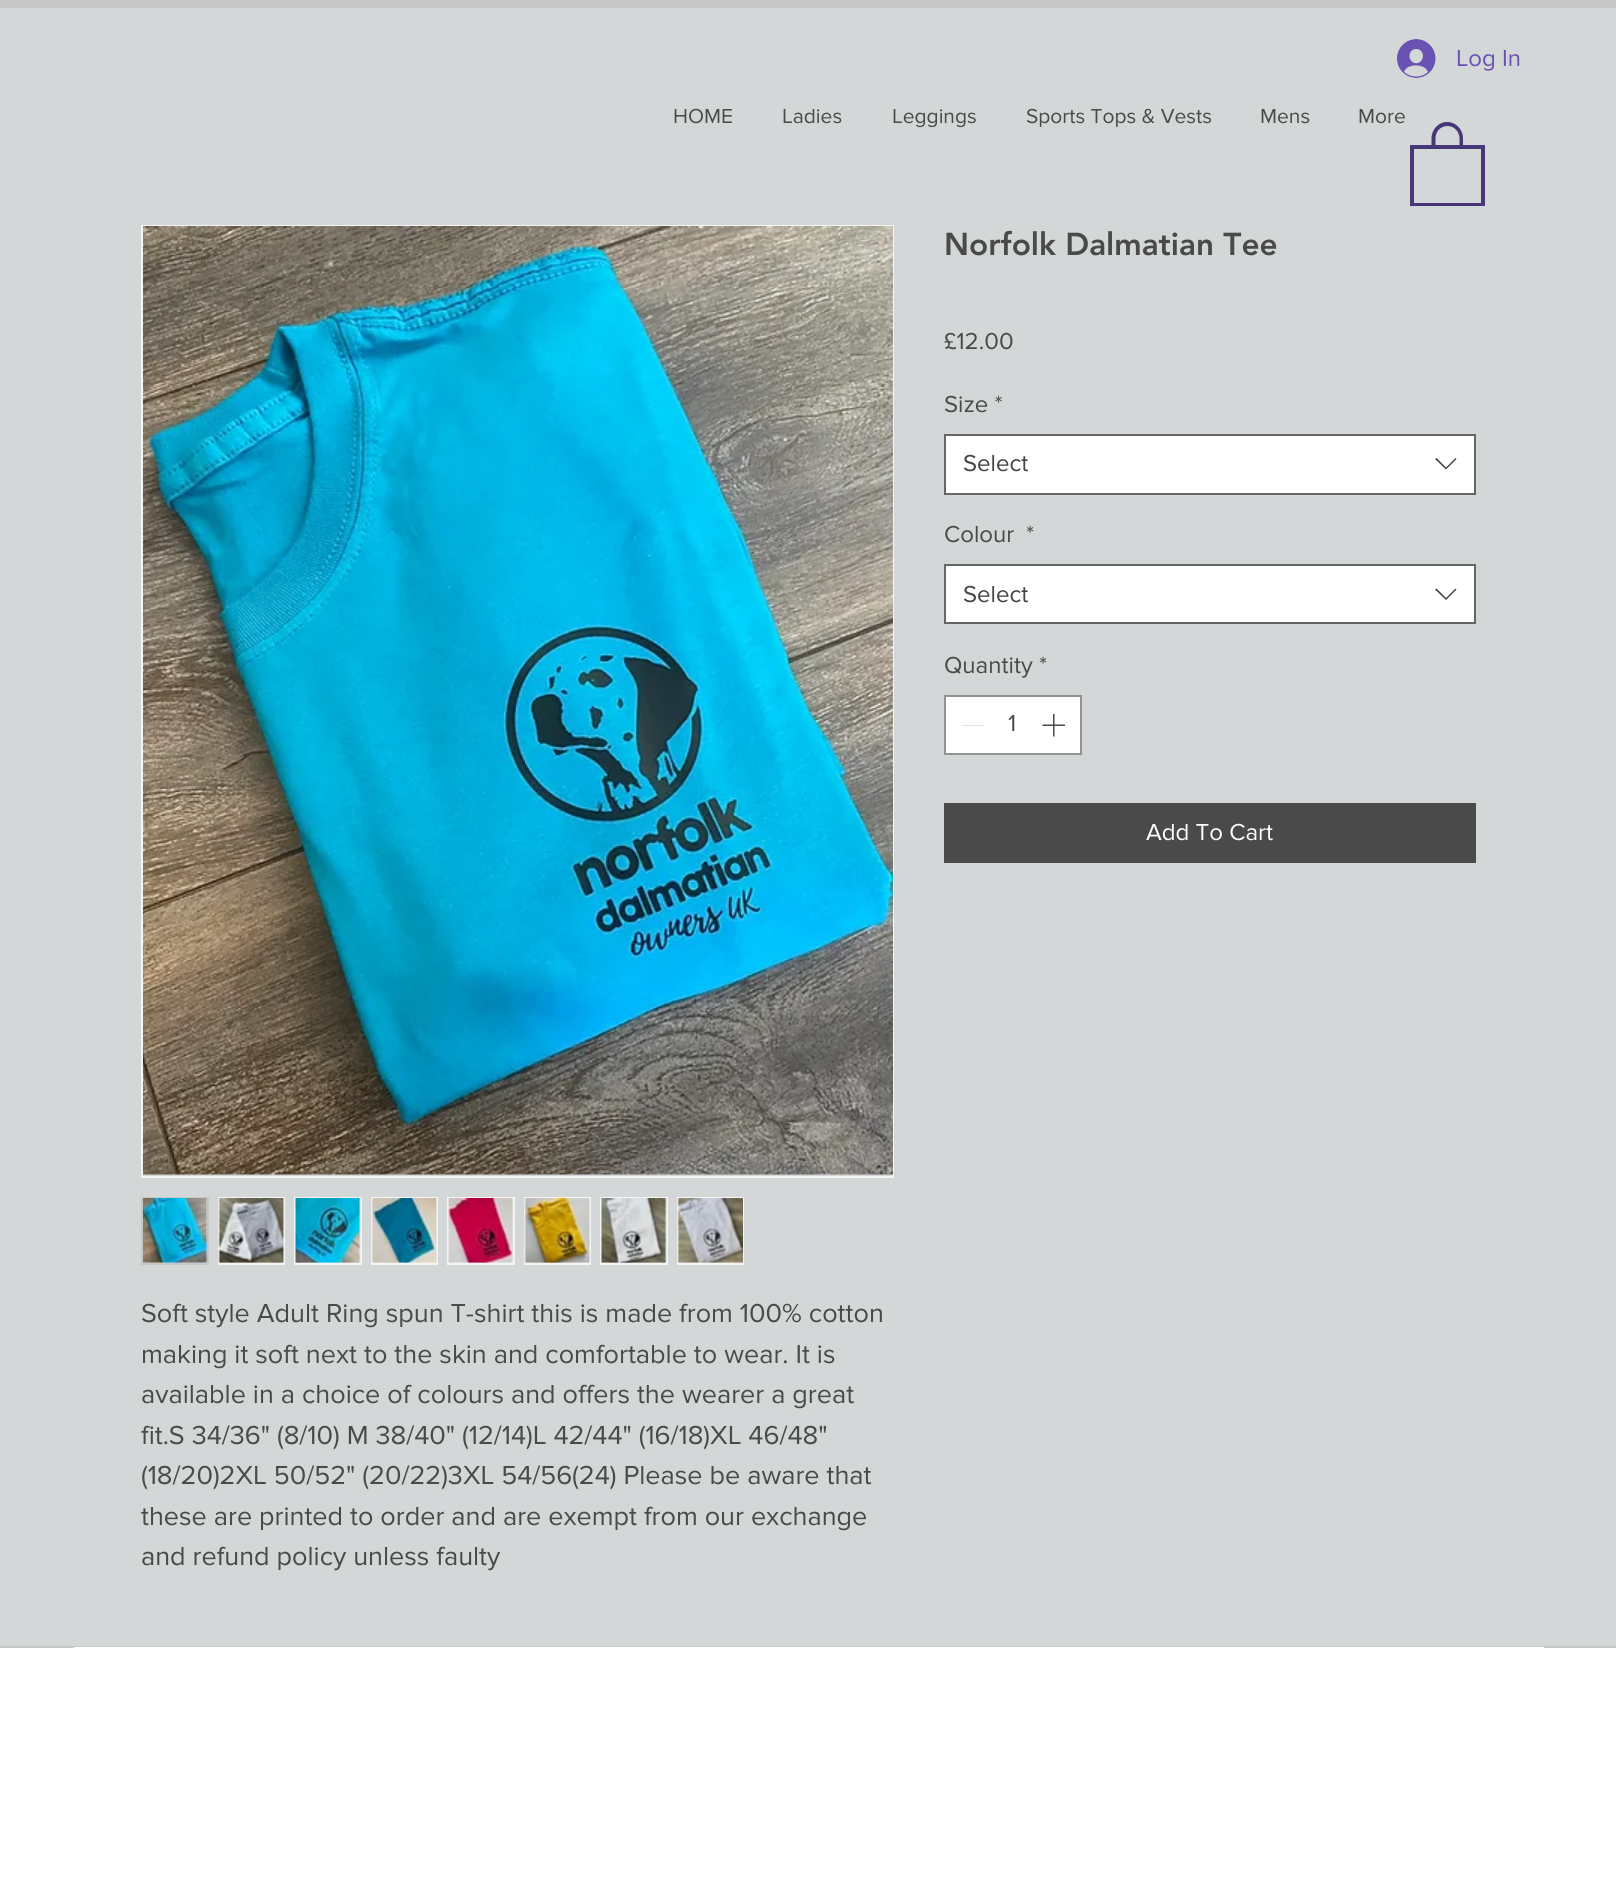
#include <cairo.h>
#include <math.h>
#include <stddef.h>

static cairo_t *ctx;

static void use_color(int r, int g, int b) {
    cairo_set_source_rgb(ctx, r / 255.0, g / 255.0, b / 255.0);
}

static void picture(const char *path, double x, double y, double w, double h) {
    cairo_surface_t *image = cairo_image_surface_create_from_png(path);
    cairo_save(ctx);
    cairo_set_source_surface(ctx, image, x, y);
    cairo_rectangle(ctx, x, y, w, h);
    cairo_fill(ctx);
    cairo_restore(ctx);
    cairo_surface_destroy(image);
}

int main(void) {
    cairo_surface_t *surface = cairo_image_surface_create(CAIRO_FORMAT_RGB24, 1616, 1902);
    ctx = cairo_create(surface);
    cairo_font_options_t *options = cairo_font_options_create();
    cairo_font_options_set_hint_metrics(options, CAIRO_HINT_METRICS_OFF);
    cairo_font_options_set_hint_style(options, CAIRO_HINT_STYLE_NONE);
    cairo_set_font_options(ctx, options);
    cairo_set_miter_limit(ctx, 4);
    use_color(212, 215, 215);
    cairo_paint(ctx);
    use_color(199, 199, 199);
    cairo_rectangle(ctx, 0, 0, 1616, 8);
    cairo_fill(ctx);
    picture("img1.png", 1397, 39, 39, 39);
    cairo_select_font_face(ctx, "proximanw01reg", CAIRO_FONT_SLANT_NORMAL, CAIRO_FONT_WEIGHT_NORMAL);
    cairo_set_font_size(ctx, 24);
    use_color(106, 81, 180);
    cairo_move_to(ctx, 1456, 66);
    cairo_show_text(ctx, "Log In");
    cairo_set_font_size(ctx, 21);
    use_color(74, 74, 74);
    cairo_move_to(ctx, 673, 123);
    cairo_show_text(ctx, "HOME");
    cairo_move_to(ctx, 782, 123);
    cairo_show_text(ctx, "Ladies");
    cairo_move_to(ctx, 892, 123);
    cairo_show_text(ctx, "Leggings");
    cairo_move_to(ctx, 1026, 123);
    cairo_show_text(ctx, "Sports Tops & Vests");
    cairo_move_to(ctx, 1260, 123);
    cairo_show_text(ctx, "Mens");
    cairo_move_to(ctx, 1358, 123);
    cairo_show_text(ctx, "More");
    use_color(71, 54, 120);
    cairo_new_path(ctx);
    cairo_move_to(ctx, 1447, 122);
    cairo_curve_to(ctx, 1438.5, 122, 1431.5, 129.5, 1431.5, 138.5);
    cairo_line_to(ctx, 1431.5, 146.5);
    cairo_line_to(ctx, 1435.5, 146.5);
    cairo_line_to(ctx, 1435.5, 138.5);
    cairo_curve_to(ctx, 1435.5, 131.5, 1440.5, 126, 1447.5, 126);
    cairo_curve_to(ctx, 1454, 126, 1459.5, 131.5, 1459.5, 138.5);
    cairo_line_to(ctx, 1459.5, 146.5);
    cairo_line_to(ctx, 1462.5, 146.5);
    cairo_line_to(ctx, 1462.5, 146);
    cairo_line_to(ctx, 1463, 146);
    cairo_line_to(ctx, 1463, 138.5);
    cairo_curve_to(ctx, 1463, 129.5, 1456, 122, 1447, 122);
    cairo_close_path(ctx);
    cairo_fill(ctx);
    cairo_new_path(ctx);
    cairo_move_to(ctx, 1481, 149);
    cairo_line_to(ctx, 1481, 203);
    cairo_line_to(ctx, 1414, 203);
    cairo_line_to(ctx, 1414, 149);
    cairo_line_to(ctx, 1481, 149);
    cairo_move_to(ctx, 1485, 145);
    cairo_line_to(ctx, 1410, 145);
    cairo_line_to(ctx, 1410, 206);
    cairo_line_to(ctx, 1485, 206);
    cairo_close_path(ctx);
    cairo_fill(ctx);
    cairo_select_font_face(ctx, "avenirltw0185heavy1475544 Black", CAIRO_FONT_SLANT_NORMAL, CAIRO_FONT_WEIGHT_NORMAL);
    cairo_set_font_size(ctx, 31.5);
    use_color(74, 74, 74);
    cairo_move_to(ctx, 944, 255);
    cairo_show_text(ctx, "Norfolk Dalmatian Tee");
    cairo_select_font_face(ctx, "proximanw01reg", CAIRO_FONT_SLANT_NORMAL, CAIRO_FONT_WEIGHT_NORMAL);
    cairo_set_font_size(ctx, 24);
    cairo_move_to(ctx, 944, 349);
    cairo_show_text(ctx, "£12.00");
    cairo_move_to(ctx, 944, 412);
    cairo_show_text(ctx, "Size *");
    use_color(255, 255, 255);
    cairo_rectangle(ctx, 945, 435, 530, 59);
    cairo_fill_preserve(ctx);
    use_color(102, 102, 102);
    cairo_stroke(ctx);
    use_color(68, 68, 68);
    cairo_move_to(ctx, 963, 471);
    cairo_show_text(ctx, "Select");
    cairo_set_fill_rule(ctx, CAIRO_FILL_RULE_EVEN_ODD);
    cairo_new_path(ctx);
    cairo_move_to(ctx, 1455.5, 458);
    cairo_line_to(ctx, 1456.5, 459);
    cairo_line_to(ctx, 1446, 469.5);
    cairo_line_to(ctx, 1435, 459);
    cairo_line_to(ctx, 1436.5, 458);
    cairo_line_to(ctx, 1446, 467.5);
    cairo_close_path(ctx);
    cairo_fill(ctx);
    use_color(74, 74, 74);
    cairo_move_to(ctx, 944, 542);
    cairo_show_text(ctx, "Colour");
    cairo_move_to(ctx, 1026, 542);
    cairo_show_text(ctx, "*");
    use_color(255, 255, 255);
    cairo_rectangle(ctx, 945, 565, 530, 58);
    cairo_fill_preserve(ctx);
    use_color(102, 102, 102);
    cairo_stroke(ctx);
    use_color(68, 68, 68);
    cairo_move_to(ctx, 963, 602);
    cairo_show_text(ctx, "Select");
    cairo_new_path(ctx);
    cairo_move_to(ctx, 1455.5, 588.5);
    cairo_line_to(ctx, 1456.5, 589.5);
    cairo_line_to(ctx, 1446, 600);
    cairo_line_to(ctx, 1435, 589.5);
    cairo_line_to(ctx, 1436.5, 588.5);
    cairo_line_to(ctx, 1446, 598);
    cairo_close_path(ctx);
    cairo_fill(ctx);
    use_color(74, 74, 74);
    cairo_move_to(ctx, 944, 673);
    cairo_show_text(ctx, "Quantity *");
    use_color(255, 255, 255);
    cairo_rectangle(ctx, 945, 696, 136, 58);
    cairo_fill_preserve(ctx);
    use_color(146, 146, 146);
    cairo_stroke(ctx);
    use_color(227, 227, 227);
    cairo_rectangle(ctx, 962, 725, 22, 1);
    cairo_fill(ctx);
    use_color(74, 74, 74);
    cairo_move_to(ctx, 1008, 731);
    cairo_show_text(ctx, "1");
    picture("img2.png", 1042, 714, 23, 23);
    cairo_rectangle(ctx, 944, 803, 532, 60);
    cairo_fill(ctx);
    use_color(255, 255, 255);
    cairo_move_to(ctx, 1146, 840);
    cairo_show_text(ctx, "Add To Cart");
    cairo_rectangle(ctx, 142, 226, 751, 951);
    use_color(245, 245, 245);
    cairo_stroke(ctx);
    picture("img3.png", 143, 226, 750, 949);
    cairo_rectangle(ctx, 142, 1198, 66, 66);
    cairo_fill_preserve(ctx);
    use_color(199, 199, 199);
    cairo_stroke(ctx);
    picture("img4.png", 143, 1198, 65, 65);
    use_color(245, 245, 245);
    cairo_rectangle(ctx, 218, 1197, 67, 68);
    cairo_fill(ctx);
    picture("img5.png", 218, 1198, 66, 65);
    cairo_rectangle(ctx, 294, 1197, 68, 68);
    cairo_fill(ctx);
    picture("img6.png", 295, 1198, 66, 65);
    cairo_rectangle(ctx, 371, 1197, 67, 68);
    cairo_fill(ctx);
    picture("img7.png", 371, 1198, 66, 65);
    cairo_rectangle(ctx, 447, 1197, 68, 68);
    cairo_fill(ctx);
    picture("img8.png", 448, 1198, 66, 65);
    cairo_rectangle(ctx, 524, 1197, 67, 68);
    cairo_fill(ctx);
    picture("img9.png", 524, 1198, 66, 65);
    cairo_rectangle(ctx, 600, 1197, 68, 68);
    cairo_fill(ctx);
    picture("img10.png", 601, 1198, 66, 65);
    cairo_rectangle(ctx, 677, 1197, 67, 68);
    cairo_fill(ctx);
    picture("img11.png", 677, 1198, 66, 65);
    cairo_set_font_size(ctx, 27);
    use_color(74, 74, 74);
    cairo_move_to(ctx, 141, 1322);
    cairo_show_text(ctx, "Soft style Adult Ring spun T-shirt this is made from 100% cotton");
    cairo_move_to(ctx, 141, 1363);
    cairo_show_text(ctx, "making it soft next to the skin and comfortable to wear. It is");
    cairo_move_to(ctx, 141, 1403);
    cairo_show_text(ctx, "available in a choice of colours and offers the wearer a great");
    cairo_move_to(ctx, 141, 1444);
    cairo_show_text(ctx, "fit.S 34/36\" (8/10) M 38/40\" (12/14)L 42/44\" (16/18)XL 46/48\"");
    cairo_move_to(ctx, 141, 1484);
    cairo_show_text(ctx, "(18/20)2XL 50/52\" (20/22)3XL 54/56(24) Please be aware that");
    cairo_move_to(ctx, 141, 1525);
    cairo_show_text(ctx, "these are printed to order and are exempt from our exchange");
    cairo_move_to(ctx, 141, 1565);
    cairo_show_text(ctx, "and refund policy unless faulty");
    use_color(255, 255, 255);
    cairo_rectangle(ctx, 0, 1648, 1616, 254);
    cairo_fill(ctx);
    use_color(199, 199, 199);
    cairo_rectangle(ctx, 0, 1646, 1616, 2);
    cairo_fill(ctx);
    use_color(255, 255, 255);
    cairo_rectangle(ctx, 74, 1647, 1470, 1);
    cairo_fill(ctx);
    cairo_surface_write_to_png(surface, "result.png");
    cairo_font_options_destroy(options);
    cairo_destroy(ctx);
    cairo_surface_destroy(surface);
    return 0;
}
